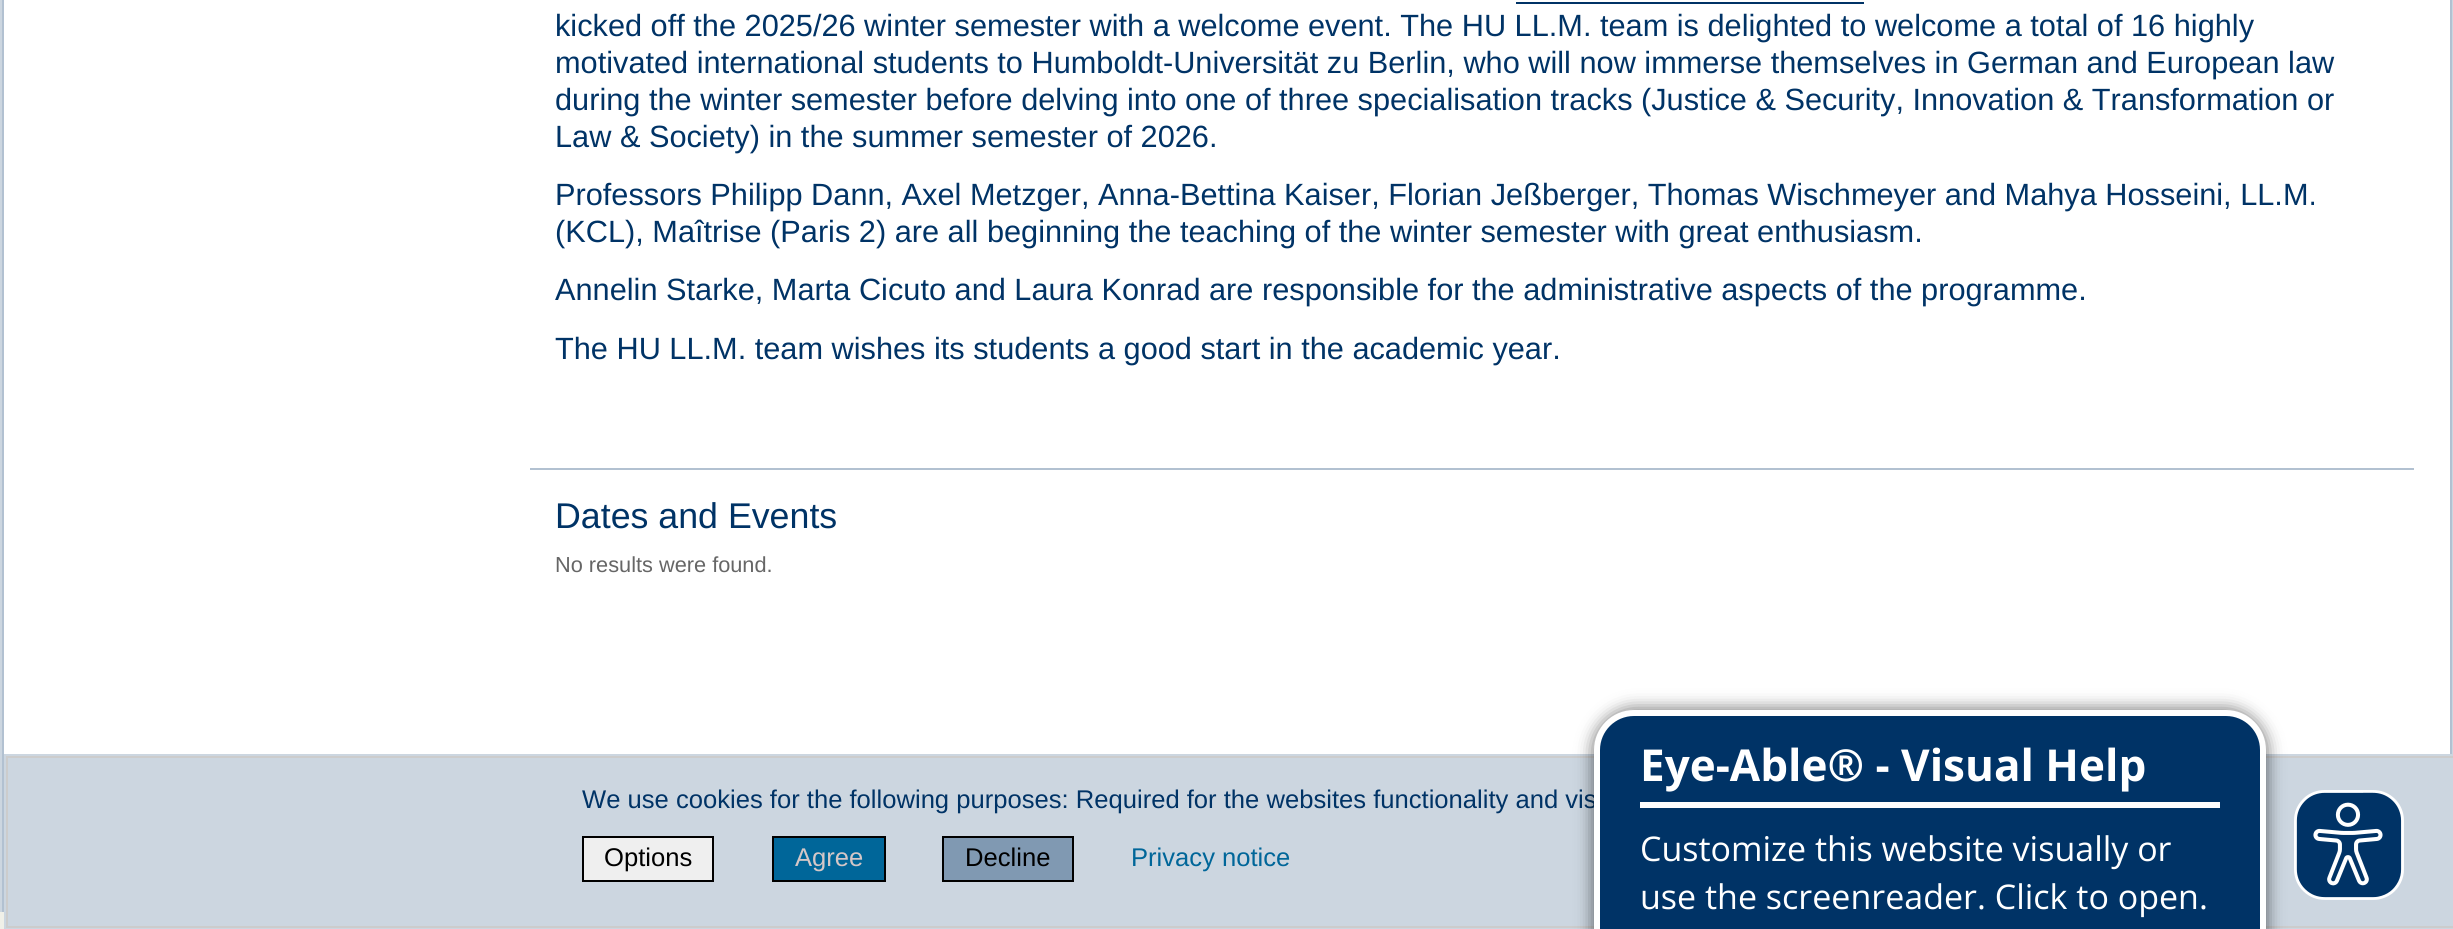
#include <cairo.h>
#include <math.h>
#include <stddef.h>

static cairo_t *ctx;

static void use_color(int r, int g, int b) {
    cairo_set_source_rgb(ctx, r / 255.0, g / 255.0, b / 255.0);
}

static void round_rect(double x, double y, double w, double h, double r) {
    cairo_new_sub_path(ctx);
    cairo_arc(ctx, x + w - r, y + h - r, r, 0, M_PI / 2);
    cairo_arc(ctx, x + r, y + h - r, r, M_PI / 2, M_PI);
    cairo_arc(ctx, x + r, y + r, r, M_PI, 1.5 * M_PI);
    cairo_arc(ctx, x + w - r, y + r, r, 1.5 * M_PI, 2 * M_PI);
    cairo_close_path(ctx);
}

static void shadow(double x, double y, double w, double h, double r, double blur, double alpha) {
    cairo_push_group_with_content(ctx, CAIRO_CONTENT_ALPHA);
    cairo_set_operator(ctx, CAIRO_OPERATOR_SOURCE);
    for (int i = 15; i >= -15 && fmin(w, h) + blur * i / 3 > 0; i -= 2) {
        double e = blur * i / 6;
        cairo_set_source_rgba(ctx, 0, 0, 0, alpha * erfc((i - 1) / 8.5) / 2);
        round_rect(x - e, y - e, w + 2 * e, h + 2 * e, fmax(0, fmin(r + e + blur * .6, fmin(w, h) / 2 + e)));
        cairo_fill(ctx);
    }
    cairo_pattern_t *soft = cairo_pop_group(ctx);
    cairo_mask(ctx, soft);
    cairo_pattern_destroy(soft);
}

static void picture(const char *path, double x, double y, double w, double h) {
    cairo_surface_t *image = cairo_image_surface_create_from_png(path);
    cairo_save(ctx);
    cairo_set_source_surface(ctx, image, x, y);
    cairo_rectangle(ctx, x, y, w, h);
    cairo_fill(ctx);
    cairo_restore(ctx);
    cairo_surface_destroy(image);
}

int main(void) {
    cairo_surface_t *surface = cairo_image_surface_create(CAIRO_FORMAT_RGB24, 2453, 929);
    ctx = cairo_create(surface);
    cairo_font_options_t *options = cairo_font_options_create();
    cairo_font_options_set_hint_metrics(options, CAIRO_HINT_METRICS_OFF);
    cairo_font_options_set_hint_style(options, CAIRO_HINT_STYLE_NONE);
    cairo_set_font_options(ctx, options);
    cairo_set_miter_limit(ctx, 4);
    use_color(240, 240, 232);
    cairo_paint(ctx);
    use_color(204, 214, 224);
    cairo_rectangle(ctx, 2452, 0, 1, 754);
    cairo_fill(ctx);
    cairo_rectangle(ctx, 0, 0, 2, 912);
    cairo_fill(ctx);
    use_color(255, 255, 255);
    cairo_rectangle(ctx, 4, 0, 2446, 754);
    cairo_fill(ctx);
    use_color(178, 193, 209);
    cairo_rectangle(ctx, 2450, 0, 2, 754);
    cairo_fill(ctx);
    cairo_rectangle(ctx, 2, 0, 2, 912);
    cairo_fill(ctx);
    use_color(0, 51, 102);
    cairo_rectangle(ctx, 1516, 2, 348, 2);
    cairo_fill(ctx);
    cairo_select_font_face(ctx, "Liberation Sans", CAIRO_FONT_SLANT_NORMAL, CAIRO_FONT_WEIGHT_NORMAL);
    cairo_set_font_size(ctx, 30.72);
    cairo_move_to(ctx, 555, 36);
    cairo_show_text(ctx, "kicked off the 2025/26 winter semester with a welcome event. The HU LL.M. team is delighted to welcome a total of 16 highly");
    cairo_move_to(ctx, 555, 73);
    cairo_show_text(ctx, "motivated international students to Humboldt-Universität zu Berlin, who will now immerse themselves in German and European law");
    cairo_move_to(ctx, 555, 110);
    cairo_show_text(ctx, "during the winter semester before delving into one of three specialisation tracks (Justice & Security, Innovation & Transformation or");
    cairo_move_to(ctx, 555, 147);
    cairo_show_text(ctx, "Law & Society) in the summer semester of 2026.");
    cairo_move_to(ctx, 555, 205);
    cairo_show_text(ctx, "Professors Philipp Dann, Axel Metzger, Anna-Bettina Kaiser, Florian Jeßberger, Thomas Wischmeyer and Mahya Hosseini, LL.M.");
    cairo_move_to(ctx, 555, 242);
    cairo_show_text(ctx, "(KCL), Maîtrise (Paris 2) are all beginning the teaching of the winter semester with great enthusiasm.");
    cairo_move_to(ctx, 555, 300);
    cairo_show_text(ctx, "Annelin Starke, Marta Cicuto and Laura Konrad are responsible for the administrative aspects of the programme.");
    cairo_move_to(ctx, 555, 359);
    cairo_show_text(ctx, "The HU LL.M. team wishes its students a good start in the academic year.");
    use_color(178, 193, 209);
    cairo_rectangle(ctx, 530, 468, 1884, 2);
    cairo_fill(ctx);
    cairo_set_font_size(ctx, 35.75);
    use_color(0, 51, 102);
    cairo_move_to(ctx, 555, 528);
    cairo_show_text(ctx, "Dates and Events");
    cairo_set_font_size(ctx, 21.75);
    use_color(102, 102, 102);
    cairo_move_to(ctx, 555, 572);
    cairo_show_text(ctx, "No results were found.");
    cairo_rectangle(ctx, 5, 755, 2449, 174);
    use_color(204, 214, 224);
    cairo_stroke(ctx);
    cairo_rectangle(ctx, 7, 757, 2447, 170);
    cairo_fill_preserve(ctx);
    use_color(204, 204, 204);
    cairo_stroke(ctx);
    cairo_set_font_size(ctx, 25.6);
    use_color(0, 51, 102);
    cairo_move_to(ctx, 582, 808);
    cairo_show_text(ctx, "We use cookies for the following purposes: Required for the websites functionality and vis");
    use_color(239, 239, 239);
    cairo_rectangle(ctx, 583, 837, 130, 44);
    cairo_fill_preserve(ctx);
    use_color(0, 0, 0);
    cairo_stroke(ctx);
    cairo_move_to(ctx, 604, 866);
    cairo_show_text(ctx, "Options");
    use_color(0, 102, 153);
    cairo_rectangle(ctx, 773, 837, 112, 44);
    cairo_fill_preserve(ctx);
    use_color(0, 0, 0);
    cairo_stroke(ctx);
    use_color(213, 199, 199);
    cairo_move_to(ctx, 795, 866);
    cairo_show_text(ctx, "Agree");
    use_color(128, 153, 178);
    cairo_rectangle(ctx, 943, 837, 130, 44);
    cairo_fill_preserve(ctx);
    use_color(0, 0, 0);
    cairo_stroke(ctx);
    cairo_move_to(ctx, 965, 866);
    cairo_show_text(ctx, "Decline");
    use_color(0, 102, 153);
    cairo_move_to(ctx, 1131, 866);
    cairo_show_text(ctx, "Privacy notice");
    use_color(0, 0, 0);
    shadow(1592, 708, 676, 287, 42, 8, 0.5);
    use_color(0, 51, 102);
    round_rect(1597, 713, 666, 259, 37);
    cairo_fill_preserve(ctx);
    use_color(255, 255, 255);
    cairo_set_line_width(ctx, 6);
    cairo_stroke(ctx);
    cairo_rectangle(ctx, 1640, 802, 580, 6);
    cairo_fill(ctx);
    cairo_select_font_face(ctx, "Open Sans", CAIRO_FONT_SLANT_NORMAL, CAIRO_FONT_WEIGHT_BOLD);
    cairo_set_font_size(ctx, 44);
    cairo_move_to(ctx, 1640, 781);
    cairo_show_text(ctx, "Eye-Able® - Visual Help");
    cairo_select_font_face(ctx, "Open Sans", CAIRO_FONT_SLANT_NORMAL, CAIRO_FONT_WEIGHT_NORMAL);
    cairo_set_font_size(ctx, 34);
    cairo_move_to(ctx, 1640, 861);
    cairo_show_text(ctx, "Customize this website visually or");
    cairo_move_to(ctx, 1640, 909);
    cairo_show_text(ctx, "use the screenreader. Click to open.");
    picture("img1.png", 2294, 790, 110, 110);
    cairo_surface_write_to_png(surface, "result.png");
    cairo_font_options_destroy(options);
    cairo_destroy(ctx);
    cairo_surface_destroy(surface);
    return 0;
}
